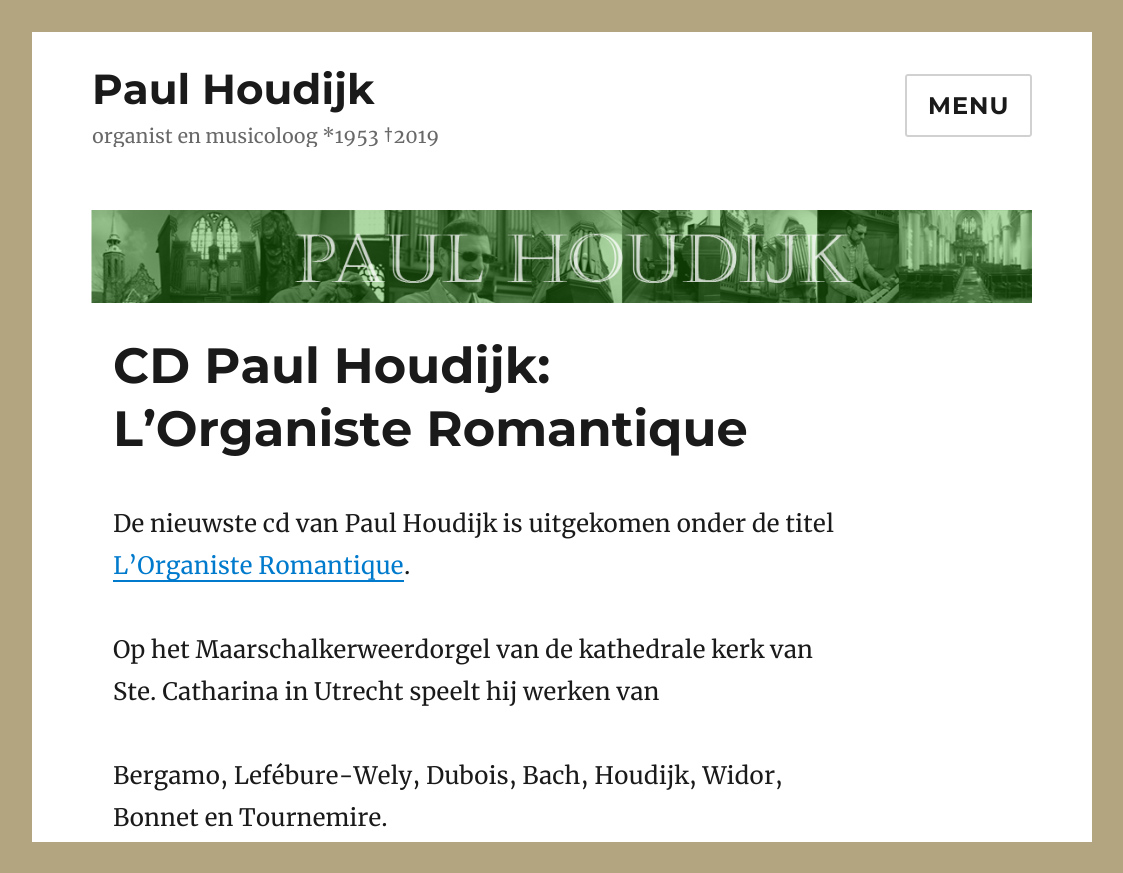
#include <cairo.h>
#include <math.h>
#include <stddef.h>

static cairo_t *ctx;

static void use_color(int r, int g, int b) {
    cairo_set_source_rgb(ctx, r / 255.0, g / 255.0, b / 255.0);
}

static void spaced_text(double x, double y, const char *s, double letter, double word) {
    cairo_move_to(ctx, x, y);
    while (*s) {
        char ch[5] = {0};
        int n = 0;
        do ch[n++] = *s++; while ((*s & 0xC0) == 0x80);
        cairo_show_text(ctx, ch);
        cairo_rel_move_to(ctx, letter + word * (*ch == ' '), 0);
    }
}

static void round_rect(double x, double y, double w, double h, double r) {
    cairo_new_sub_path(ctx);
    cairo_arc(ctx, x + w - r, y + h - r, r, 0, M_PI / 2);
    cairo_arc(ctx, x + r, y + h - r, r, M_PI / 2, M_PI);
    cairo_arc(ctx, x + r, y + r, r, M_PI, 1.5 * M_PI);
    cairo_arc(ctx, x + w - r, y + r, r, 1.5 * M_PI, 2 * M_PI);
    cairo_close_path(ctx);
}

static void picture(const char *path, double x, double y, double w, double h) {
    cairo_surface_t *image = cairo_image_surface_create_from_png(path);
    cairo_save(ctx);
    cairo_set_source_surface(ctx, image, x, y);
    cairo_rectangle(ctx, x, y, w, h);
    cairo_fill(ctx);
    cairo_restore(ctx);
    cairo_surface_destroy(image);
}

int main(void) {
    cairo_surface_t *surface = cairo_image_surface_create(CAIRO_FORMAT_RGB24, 1123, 873);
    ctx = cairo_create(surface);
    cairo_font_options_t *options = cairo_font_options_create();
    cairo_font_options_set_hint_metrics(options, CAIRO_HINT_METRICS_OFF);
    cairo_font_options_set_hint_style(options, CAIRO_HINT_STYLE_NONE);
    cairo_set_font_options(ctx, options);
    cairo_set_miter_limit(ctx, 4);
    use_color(179, 165, 128);
    cairo_paint(ctx);
    use_color(255, 255, 255);
    cairo_rectangle(ctx, 32, 32, 1060, 810);
    cairo_fill(ctx);
    cairo_select_font_face(ctx, "Montserrat Thin", CAIRO_FONT_SLANT_NORMAL, CAIRO_FONT_WEIGHT_NORMAL);
    cairo_set_font_size(ctx, 42);
    use_color(26, 26, 26);
    cairo_move_to(ctx, 92, 104);
    cairo_show_text(ctx, "Paul Houdijk");
    cairo_save(ctx);
    cairo_rectangle(ctx, 92, 63, 346, 84);
    cairo_clip(ctx);
    cairo_select_font_face(ctx, "Merriweather", CAIRO_FONT_SLANT_NORMAL, CAIRO_FONT_WEIGHT_NORMAL);
    cairo_set_font_size(ctx, 19.5);
    use_color(104, 104, 104);
    cairo_move_to(ctx, 92, 143);
    cairo_show_text(ctx, "organist en musicoloog *1953 †2019");
    cairo_restore(ctx);
    round_rect(906, 75, 125, 61, 2);
    use_color(209, 209, 209);
    cairo_stroke(ctx);
    cairo_set_font_size(ctx, 24);
    use_color(26, 26, 26);
    spaced_text(928, 114, "MENU", 1, 0);
    picture("img1.png", 91, 210, 941, 93);
    cairo_set_font_size(ctx, 49.5);
    cairo_move_to(ctx, 113, 383);
    cairo_show_text(ctx, "CD Paul Houdijk:");
    cairo_move_to(ctx, 113, 446);
    cairo_show_text(ctx, "L’Organiste Romantique");
    cairo_select_font_face(ctx, "Merriweather", CAIRO_FONT_SLANT_NORMAL, CAIRO_FONT_WEIGHT_NORMAL);
    cairo_set_font_size(ctx, 24);
    cairo_move_to(ctx, 113, 532);
    cairo_show_text(ctx, "De nieuwste cd van Paul Houdijk is uitgekomen onder de titel");
    use_color(0, 122, 204);
    cairo_new_path(ctx);
    cairo_move_to(ctx, 113, 580);
    cairo_line_to(ctx, 113, 582);
    cairo_line_to(ctx, 404, 582);
    cairo_line_to(ctx, 404, 552);
    cairo_line_to(ctx, 404, 580);
    cairo_close_path(ctx);
    cairo_fill(ctx);
    cairo_move_to(ctx, 113, 574);
    cairo_show_text(ctx, "L’Organiste Romantique");
    use_color(26, 26, 26);
    cairo_move_to(ctx, 404, 574);
    cairo_show_text(ctx, ".");
    cairo_move_to(ctx, 113, 658);
    cairo_show_text(ctx, "Op het Maarschalkerweerdorgel van de kathedrale kerk van");
    cairo_move_to(ctx, 113, 700);
    cairo_show_text(ctx, "Ste. Catharina in Utrecht speelt hij werken van");
    cairo_move_to(ctx, 113, 784);
    cairo_show_text(ctx, "Bergamo, Lefébure-Wely, Dubois, Bach, Houdijk, Widor,");
    cairo_move_to(ctx, 113, 826);
    cairo_show_text(ctx, "Bonnet en Tournemire.");
    cairo_surface_write_to_png(surface, "result.png");
    cairo_font_options_destroy(options);
    cairo_destroy(ctx);
    cairo_surface_destroy(surface);
    return 0;
}
